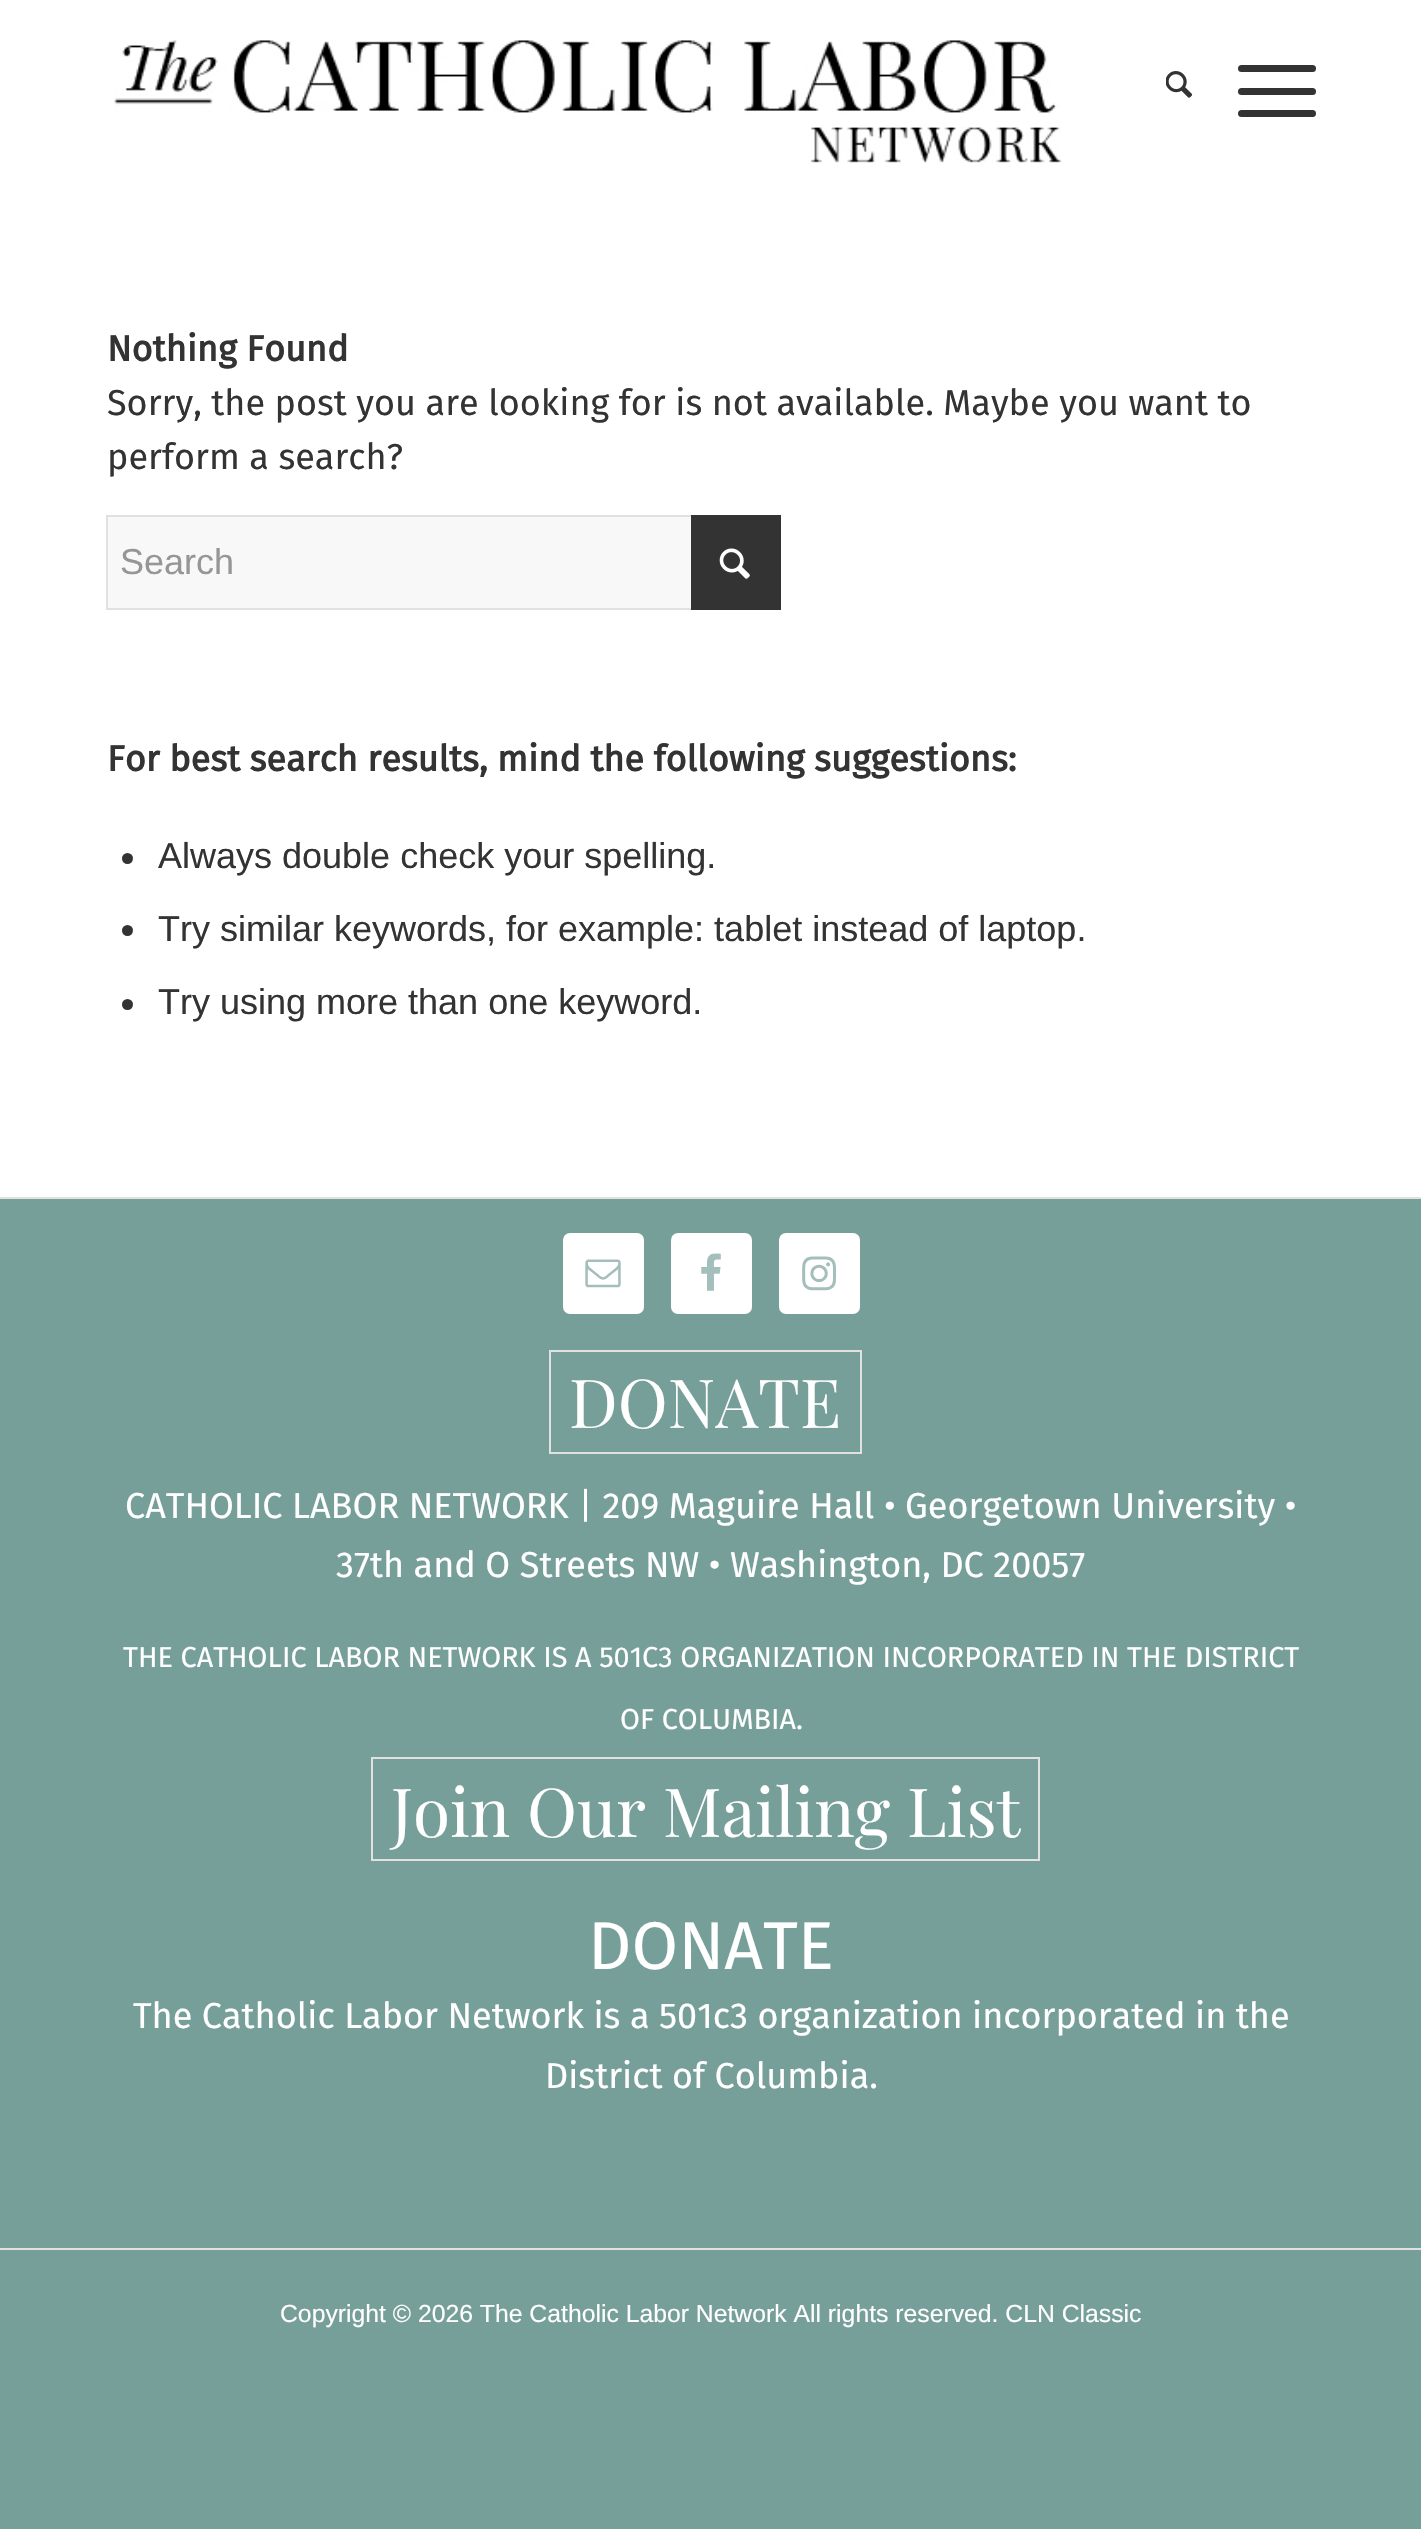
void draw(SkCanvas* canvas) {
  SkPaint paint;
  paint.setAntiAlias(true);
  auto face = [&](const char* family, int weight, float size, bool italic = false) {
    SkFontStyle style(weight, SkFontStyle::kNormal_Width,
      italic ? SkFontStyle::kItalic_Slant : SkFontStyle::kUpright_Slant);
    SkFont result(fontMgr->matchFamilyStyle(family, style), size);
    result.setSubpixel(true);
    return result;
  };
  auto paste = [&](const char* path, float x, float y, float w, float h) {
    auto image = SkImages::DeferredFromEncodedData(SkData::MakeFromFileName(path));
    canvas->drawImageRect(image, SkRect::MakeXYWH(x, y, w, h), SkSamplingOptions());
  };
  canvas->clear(0xff779f99);
  paint.setColor(0xffffffff);
  canvas->drawRect(SkRect::MakeXYWH(0, 0, 1421, 1197), paint);
  paste("img/1.png", 114, 40, 948, 123);
  paste("img/2.png", 1166, 71, 27, 27);
  paint.setColor(0xff333333);
  canvas->drawRoundRect(SkRect::MakeXYWH(1238, 88, 78, 7), 3.5f, 3.5f, paint);
  canvas->drawRoundRect(SkRect::MakeXYWH(1238, 65, 78, 7), 3.5f, 3.5f, paint);
  canvas->drawRoundRect(SkRect::MakeXYWH(1238, 110, 78, 7), 3.5f, 3.5f, paint);
  paint.setColor(0xfff8f8f8);
  canvas->drawRect(SkRect::MakeXYWH(108, 517, 583, 91), paint);
  paint.setStroke(true);
  paint.setStrokeWidth(2);
  paint.setColor(0xffe1e1e1);
  canvas->drawRect(SkRect::MakeXYWH(107, 516, 673, 93), paint);
  paint.setStroke(false);
  paint.setColor(0xff333333);
  canvas->drawRect(SkRect::MakeXYWH(691, 515, 90, 95), paint);
  paste("img/3.png", 719, 548, 31, 31);
  canvas->drawCircle(127.5f, 858.5f, 5.5f, paint);
  canvas->drawCircle(127.5f, 930.5f, 5.5f, paint);
  canvas->drawCircle(127.5f, 1004.5f, 5.5f, paint);
  paint.setColor(0xffe1e1e1);
  canvas->drawRect(SkRect::MakeXYWH(0, 1197, 1421, 2), paint);
  paint.setColor(0xffffffff);
  canvas->drawRoundRect(SkRect::MakeXYWH(563, 1233, 81, 81), 7, 7, paint);
  paste("img/4.png", 585, 1259, 36, 29);
  canvas->drawRoundRect(SkRect::MakeXYWH(671, 1233, 81, 81), 7, 7, paint);
  paste("img/5.png", 701, 1253, 20, 38);
  canvas->drawRoundRect(SkRect::MakeXYWH(779, 1233, 81, 81), 7, 7, paint);
  paste("img/6.png", 802, 1256, 34, 35);
  paint.setStroke(true);
  paint.setColor(0xffe1e1e1);
  canvas->drawRect(SkRect::MakeXYWH(550, 1351, 311, 102), paint);
  canvas->drawRect(SkRect::MakeXYWH(372, 1758, 667, 102), paint);
  paint.setStroke(false);
  canvas->drawRect(SkRect::MakeXYWH(0, 2248, 1421, 2), paint);
  auto f0 = face("Fira Sans", 700, 36);
  paint.setColor(0xff333333);
  canvas->drawString("Nothing Found", 107, 361, f0, paint);
  auto f1 = face("Fira Sans", 400, 36);
  canvas->drawString("Sorry, the post you are looking for is not available. Maybe you want to", 107, 415, f1, paint);
  canvas->drawString("perform a search?", 107, 469, f1, paint);
  auto f2 = face("Liberation Sans", 400, 36);
  paint.setColor(0xff969696);
  canvas->drawString("Search", 120, 574, f2, paint);
  paint.setColor(0xff333333);
  canvas->drawString("For best search results, mind the following suggestions:", 107, 771, f0, paint);
  {
    const struct { const char* s; float x, y; } items[] = {
      {"Always double check your spelling.", 158, 868},
      {"Try similar keywords, for example: tablet instead of laptop.", 158, 941},
      {"Try using more than one keyword.", 158, 1014},
    };
    for (auto [s, x, y] : items) {
      canvas->drawString(s, x, y, f2, paint);
    }
  }
  auto f3 = face("Playfair Display", 400, 67.5f);
  paint.setColor(0xffffffff);
  canvas->drawString("DONATE", 569, 1428, f3, paint);
  canvas->drawString("CATHOLIC LABOR NETWORK | 209 Maguire Hall • Georgetown University •", 125, 1518, f1, paint);
  canvas->drawString("37th and O Streets NW • Washington, DC 20057", 336, 1577, f1, paint);
  auto f4 = face("Fira Sans", 400, 28.8f);
  canvas->drawString("THE CATHOLIC LABOR NETWORK IS A 501C3 ORGANIZATION INCORPORATED IN THE DISTRICT", 123, 1667, f4, paint);
  canvas->drawString("OF COLUMBIA.", 620, 1729, f4, paint);
  canvas->drawString("Join Our Mailing List", 391, 1837, f3, paint);
  auto f5 = face("Fira Sans", 400, 67.5f);
  canvas->drawString("DONATE", 588, 1969, f5, paint);
  canvas->drawString("The Catholic Labor Network is a 501c3 organization incorporated in the", 133, 2028, f1, paint);
  canvas->drawString("District of Columbia.", 545, 2088, f1, paint);
  auto f6 = face("Liberation Sans", 400, 24.75f);
  canvas->drawString("Copyright © 2026 The Catholic Labor Network All rights reserved. CLN Classic", 280, 2322, f6, paint);
}
